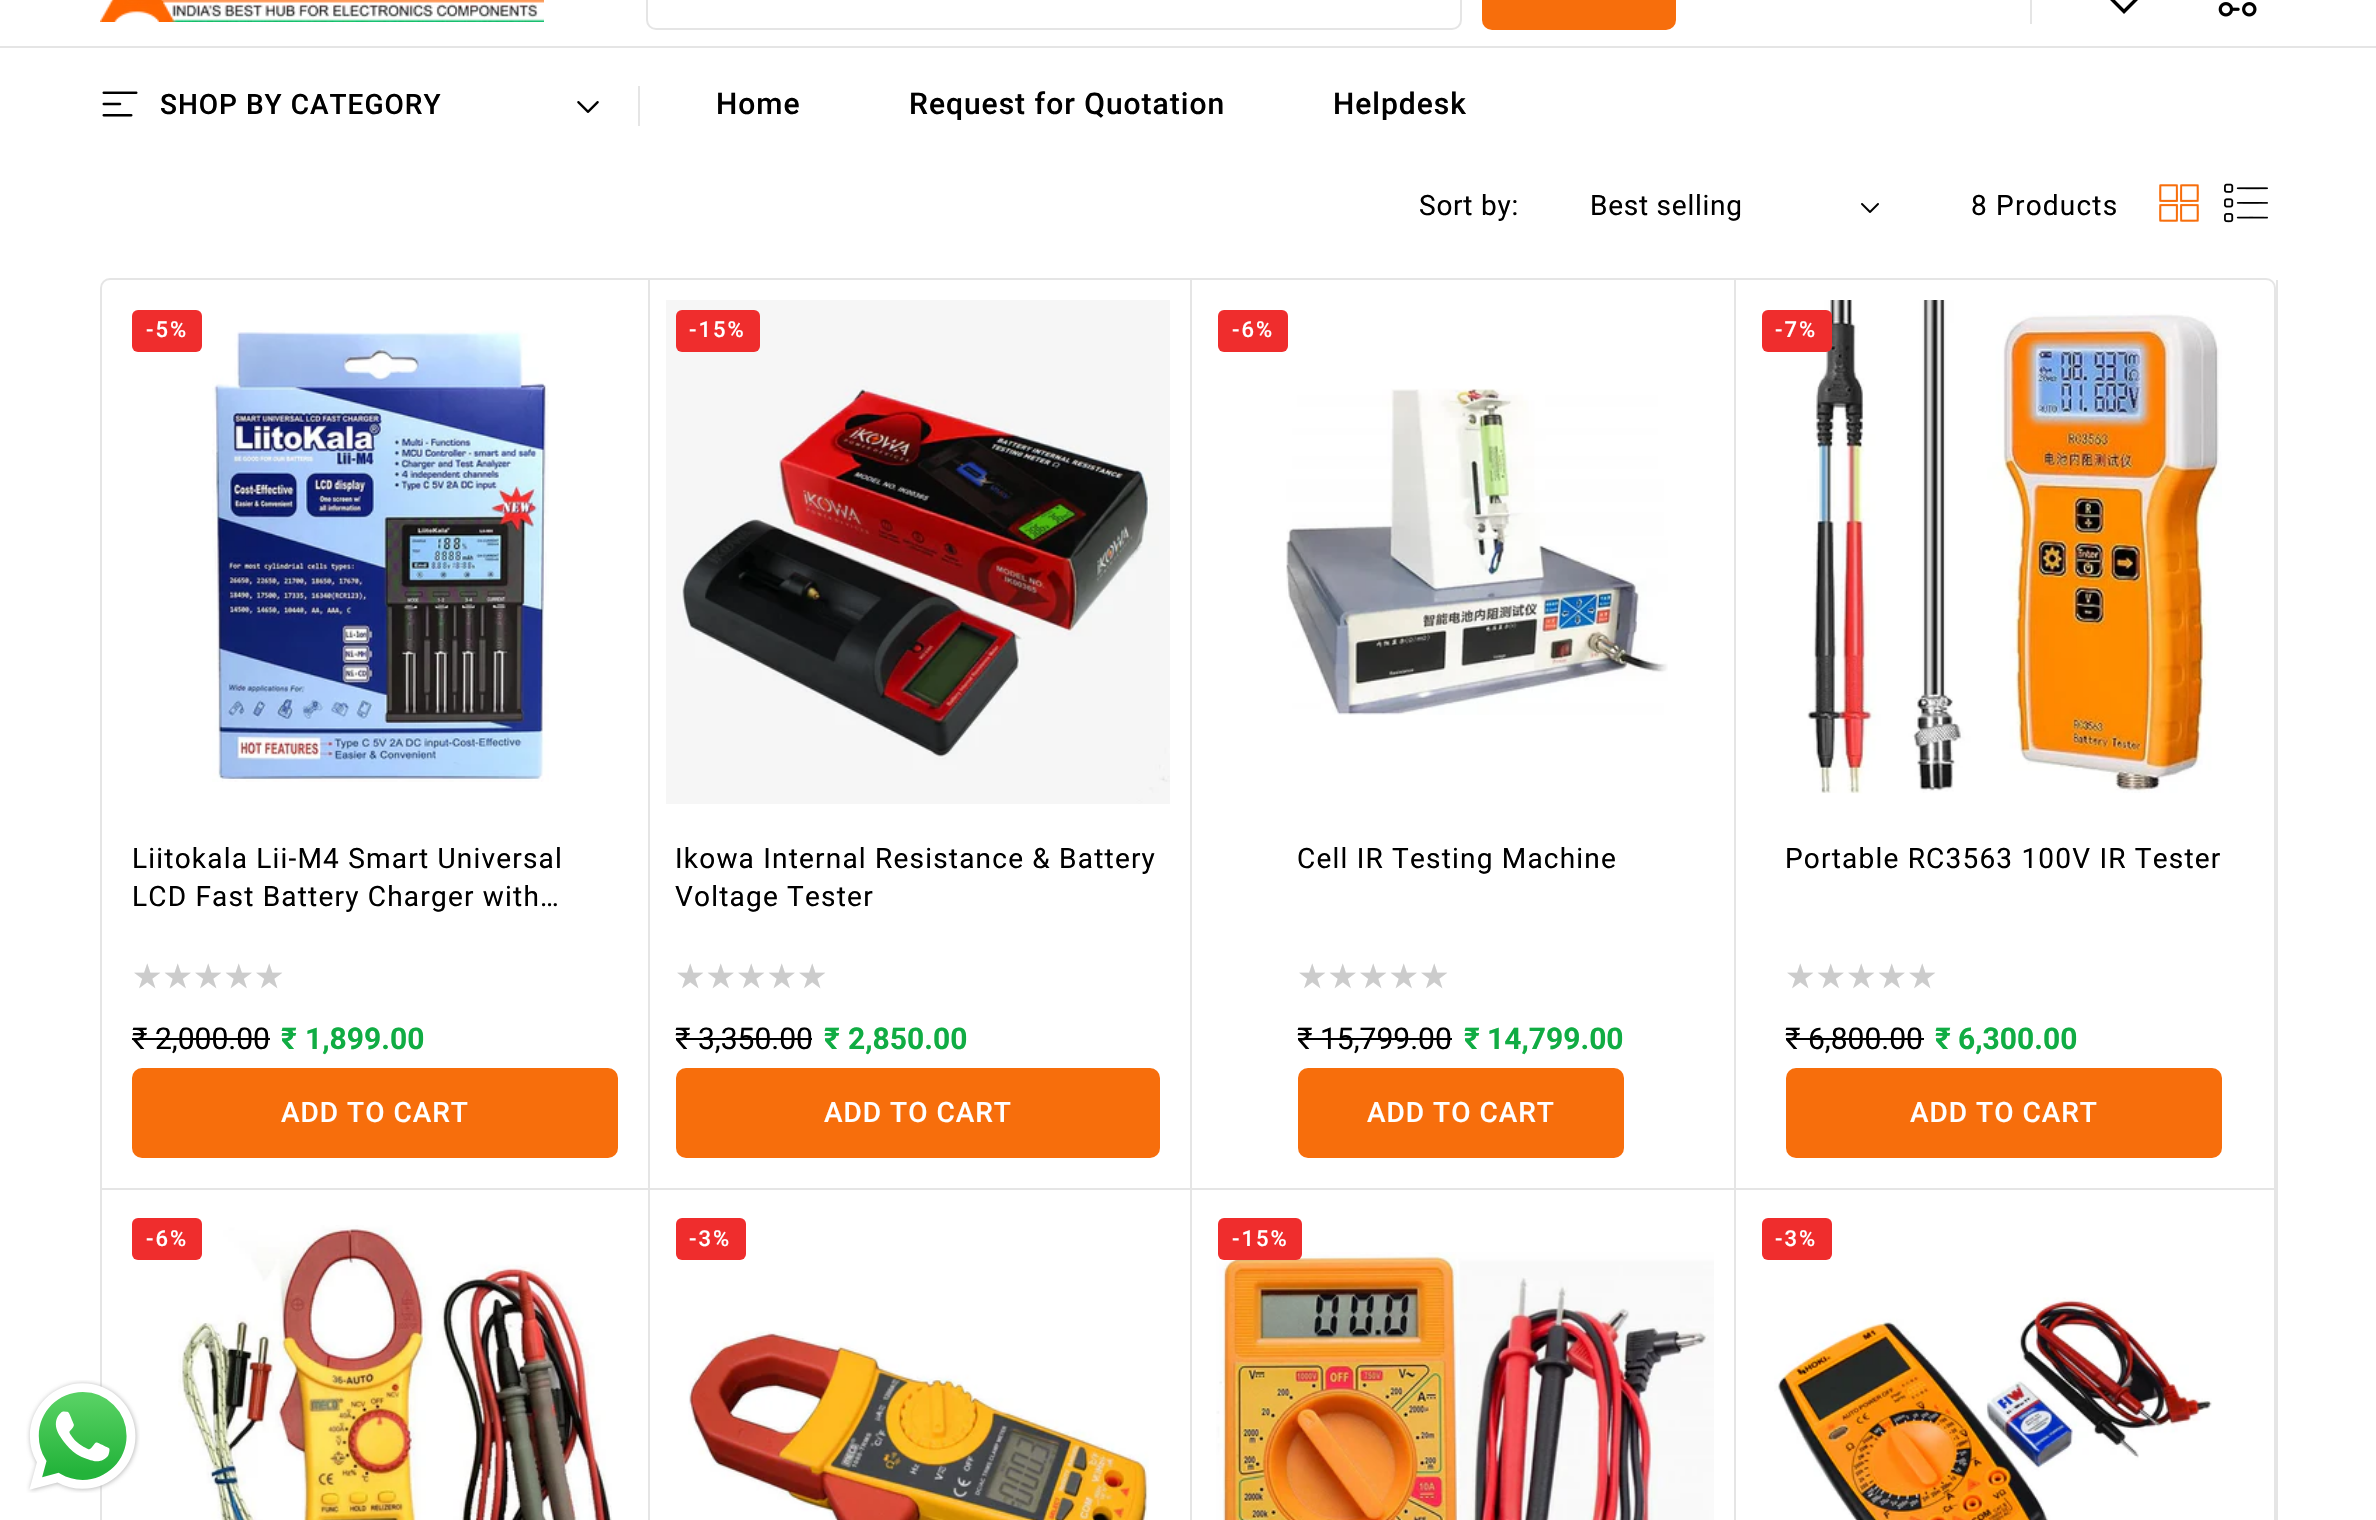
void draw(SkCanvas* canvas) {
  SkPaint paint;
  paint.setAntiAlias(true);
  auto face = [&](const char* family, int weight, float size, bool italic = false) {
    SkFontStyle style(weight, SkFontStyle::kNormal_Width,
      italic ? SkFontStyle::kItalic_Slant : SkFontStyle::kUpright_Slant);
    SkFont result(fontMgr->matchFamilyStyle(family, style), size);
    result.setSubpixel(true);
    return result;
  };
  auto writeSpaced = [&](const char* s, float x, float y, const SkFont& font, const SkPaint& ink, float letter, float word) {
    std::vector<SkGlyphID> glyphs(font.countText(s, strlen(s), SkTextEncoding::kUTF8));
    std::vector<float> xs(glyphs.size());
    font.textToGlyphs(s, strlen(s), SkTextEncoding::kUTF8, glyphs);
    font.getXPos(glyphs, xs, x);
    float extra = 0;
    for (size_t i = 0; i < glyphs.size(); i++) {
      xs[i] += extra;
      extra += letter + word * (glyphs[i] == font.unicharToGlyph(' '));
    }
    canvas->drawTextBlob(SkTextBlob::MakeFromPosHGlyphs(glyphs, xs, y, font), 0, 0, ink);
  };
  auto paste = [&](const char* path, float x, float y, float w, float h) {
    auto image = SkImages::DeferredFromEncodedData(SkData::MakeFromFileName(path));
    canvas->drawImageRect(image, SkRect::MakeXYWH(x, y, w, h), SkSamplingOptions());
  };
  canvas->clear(0xffffffff);
  paint.setColor(0xffe5e5e5);
  canvas->drawRect(SkRect::MakeXYWH(0, 46, 2376, 2), paint);
  paste("img/1.png", 100, 0, 444, 22);
  paint.setStroke(true);
  paint.setStrokeWidth(2);
  canvas->drawRoundRect(SkRect::MakeXYWH(647, -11, 814, 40), 9, 9, paint);
  paint.setStroke(false);
  paint.setColor(0xfff76e0c);
  canvas->drawRoundRect(SkRect::MakeXYWH(1482, -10, 194, 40), 10, 10, paint);
  paint.setColor(0xffe5e5e5);
  canvas->drawRect(SkRect::MakeXYWH(2030, 0, 2, 24), paint);
  paste("img/2.png", 2110, 0, 28, 14);
  paste("img/3.png", 2218, 2, 39, 15);
  paste("img/4.png", 102, 91, 36, 26);
  paste("img/5.png", 577, 101, 22, 12);
  canvas->drawRect(SkRect::MakeXYWH(638, 86, 2, 40), paint);
  paste("img/6.png", 1861, 203, 18, 10);
  paste("img/7.png", 2159, 184, 40, 38);
  paste("img/8.png", 2224, 183, 44, 40);
  paint.setStroke(true);
  canvas->drawRoundRect(SkRect::MakeXYWH(101, 279, 2174, 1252), 9, 9, paint);
  paint.setStroke(false);
  canvas->drawRect(SkRect::MakeXYWH(102, 1188, 2172, 2), paint);
  canvas->drawRect(SkRect::MakeXYWH(648, 280, 2, 1240), paint);
  paint.setColor(0xffef2d2d);
  canvas->drawRoundRect(SkRect::MakeXYWH(132, 310, 70, 42), 6, 6, paint);
  paste("img/9.png", 212, 330, 337, 452);
  paint.setColor(0xff000000);
  canvas->drawRect(SkRect::MakeXYWH(132, 1038, 138, 2), paint);
  paint.setColor(0xfff76e0c);
  canvas->drawRoundRect(SkRect::MakeXYWH(132, 1068, 486, 90), 10, 10, paint);
  paint.setColor(0xffe5e5e5);
  canvas->drawRect(SkRect::MakeXYWH(1190, 280, 2, 1240), paint);
  paste("img/10.png", 666, 300, 504, 504);
  paint.setColor(0xffef2d2d);
  canvas->drawRoundRect(SkRect::MakeXYWH(676, 310, 84, 42), 6, 6, paint);
  paint.setColor(0xff000000);
  canvas->drawRect(SkRect::MakeXYWH(676, 1038, 136, 2), paint);
  paint.setColor(0xfff76e0c);
  canvas->drawRoundRect(SkRect::MakeXYWH(676, 1068, 484, 90), 10, 10, paint);
  paint.setColor(0xffe5e5e5);
  canvas->drawRect(SkRect::MakeXYWH(1734, 280, 2, 1240), paint);
  paint.setColor(0xffef2d2d);
  canvas->drawRoundRect(SkRect::MakeXYWH(1218, 310, 70, 42), 6, 6, paint);
  paste("img/11.png", 1286, 388, 382, 327);
  paint.setColor(0xff000000);
  canvas->drawRect(SkRect::MakeXYWH(1298, 1038, 154, 2), paint);
  paint.setColor(0xfff76e0c);
  canvas->drawRoundRect(SkRect::MakeXYWH(1298, 1068, 326, 90), 10, 10, paint);
  paint.setColor(0xffe5e5e5);
  canvas->drawRect(SkRect::MakeXYWH(2276, 280, 2, 1240), paint);
  paste("img/12.png", 1807, 300, 415, 494);
  paint.setColor(0xffef2d2d);
  canvas->drawRoundRect(SkRect::MakeXYWH(1762, 310, 70, 42), 6, 6, paint);
  paint.setColor(0xff000000);
  canvas->drawRect(SkRect::MakeXYWH(1786, 1038, 138, 2), paint);
  paint.setColor(0xfff76e0c);
  canvas->drawRoundRect(SkRect::MakeXYWH(1786, 1068, 436, 90), 10, 10, paint);
  paste("img/13.png", 178, 1225, 434, 295);
  paint.setColor(0xffef2d2d);
  canvas->drawRoundRect(SkRect::MakeXYWH(132, 1218, 70, 42), 6, 6, paint);
  canvas->drawRoundRect(SkRect::MakeXYWH(676, 1218, 70, 42), 6, 6, paint);
  paste("img/14.png", 688, 1331, 461, 189);
  paste("img/15.png", 1216, 1252, 498, 268);
  canvas->drawRoundRect(SkRect::MakeXYWH(1218, 1218, 84, 42), 6, 6, paint);
  canvas->drawRoundRect(SkRect::MakeXYWH(1762, 1218, 70, 42), 6, 6, paint);
  paste("img/16.png", 1774, 1297, 438, 223);
  paste("img/17.png", 26, 1380, 114, 113);
  auto f0 = face("Roboto", 500, 28);
  paint.setColor(0xff000000);
  writeSpaced("SHOP BY CATEGORY", 160, 114, f0, paint, 1, 0);
  auto f1 = face("Roboto", 500, 30);
  {
    const struct { const char* s; float x, y; } items[] = {
      {"Home", 716, 114},
      {"Request for Quotation", 909, 114},
      {"Helpdesk", 1333, 114},
    };
    for (auto [s, x, y] : items) {
      writeSpaced(s, x, y, f1, paint, 1, 0);
    }
  }
  auto f2 = face("Roboto", 400, 28);
  writeSpaced("Sort by:", 1419, 215, f2, paint, 0.75f, 0);
  writeSpaced("Best selling", 1590, 215, f2, paint, 0.75f, 0);
  writeSpaced("8 Products", 1971, 215, f2, paint, 1.2f, 0);
  auto f3 = face("Roboto", 500, 22);
  paint.setColor(0xffffffff);
  writeSpaced("-5%", 146, 337, f3, paint, 2, 0);
  paint.setColor(0xff000000);
  writeSpaced("Liitokala Lii-M4 Smart Universal", 132, 868, f2, paint, 1.2f, 0);
  writeSpaced("LCD Fast Battery Charger with…", 132, 906, f2, paint, 1.2f, 0);
  auto f4 = face("DejaVu Sans", 400, 34);
  paint.setColor(0xffcccccc);
  canvas->drawString("★★★★★", 132, 988, f4, paint);
  auto f5 = face("Roboto", 400, 30);
  paint.setColor(0xff000000);
  canvas->drawString("₹ 2,000.00", 132, 1049, f5, paint);
  auto f6 = face("Roboto", 700, 30);
  paint.setColor(0xff10ac43);
  canvas->drawString("₹", 281, 1049, f6, paint);
  auto f7 = face("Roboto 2", 700, 30);
  canvas->drawString("1,899.00", 305, 1049, f7, paint);
  paint.setColor(0xffffffff);
  writeSpaced("ADD TO CART", 281, 1122, f0, paint, 1, 0);
  writeSpaced("-15%", 689, 337, f3, paint, 2, 0);
  paint.setColor(0xff000000);
  writeSpaced("Ikowa Internal Resistance & Battery", 675, 868, f2, paint, 1.2f, 0);
  writeSpaced("Voltage Tester", 675, 906, f2, paint, 1.2f, 0);
  paint.setColor(0xffcccccc);
  canvas->drawString("★★★★★", 675, 988, f4, paint);
  paint.setColor(0xff000000);
  canvas->drawString("₹ 3,350.00", 675, 1049, f5, paint);
  paint.setColor(0xff10ac43);
  canvas->drawString("₹", 824, 1049, f6, paint);
  canvas->drawString("2,850.00", 848, 1049, f7, paint);
  paint.setColor(0xffffffff);
  writeSpaced("ADD TO CART", 824, 1122, f0, paint, 1, 0);
  writeSpaced("-6%", 1232, 337, f3, paint, 2, 0);
  paint.setColor(0xff000000);
  writeSpaced("Cell IR Testing Machine", 1297, 868, f2, paint, 1.2f, 0);
  paint.setColor(0xffcccccc);
  canvas->drawString("★★★★★", 1297, 988, f4, paint);
  paint.setColor(0xff000000);
  canvas->drawString("₹ 15,799.00", 1297, 1049, f5, paint);
  paint.setColor(0xff10ac43);
  canvas->drawString("₹", 1464, 1049, f6, paint);
  canvas->drawString("14,799.00", 1487, 1049, f7, paint);
  paint.setColor(0xffffffff);
  writeSpaced("ADD TO CART", 1367, 1122, f0, paint, 1, 0);
  writeSpaced("-7%", 1775, 337, f3, paint, 2, 0);
  paint.setColor(0xff000000);
  writeSpaced("Portable RC3563 100V IR Tester", 1785, 868, f2, paint, 1.2f, 0);
  paint.setColor(0xffcccccc);
  canvas->drawString("★★★★★", 1785, 988, f4, paint);
  paint.setColor(0xff000000);
  canvas->drawString("₹ 6,800.00", 1785, 1049, f5, paint);
  paint.setColor(0xff10ac43);
  canvas->drawString("₹", 1935, 1049, f6, paint);
  canvas->drawString("6,300.00", 1958, 1049, f7, paint);
  paint.setColor(0xffffffff);
  writeSpaced("ADD TO CART", 1910, 1122, f0, paint, 1, 0);
  {
    const struct { const char* s; float x, y; } items[] = {
      {"-6%", 146, 1246},
      {"-3%", 689, 1246},
      {"-15%", 1232, 1246},
      {"-3%", 1775, 1246},
    };
    for (auto [s, x, y] : items) {
      writeSpaced(s, x, y, f3, paint, 2, 0);
    }
  }
}
